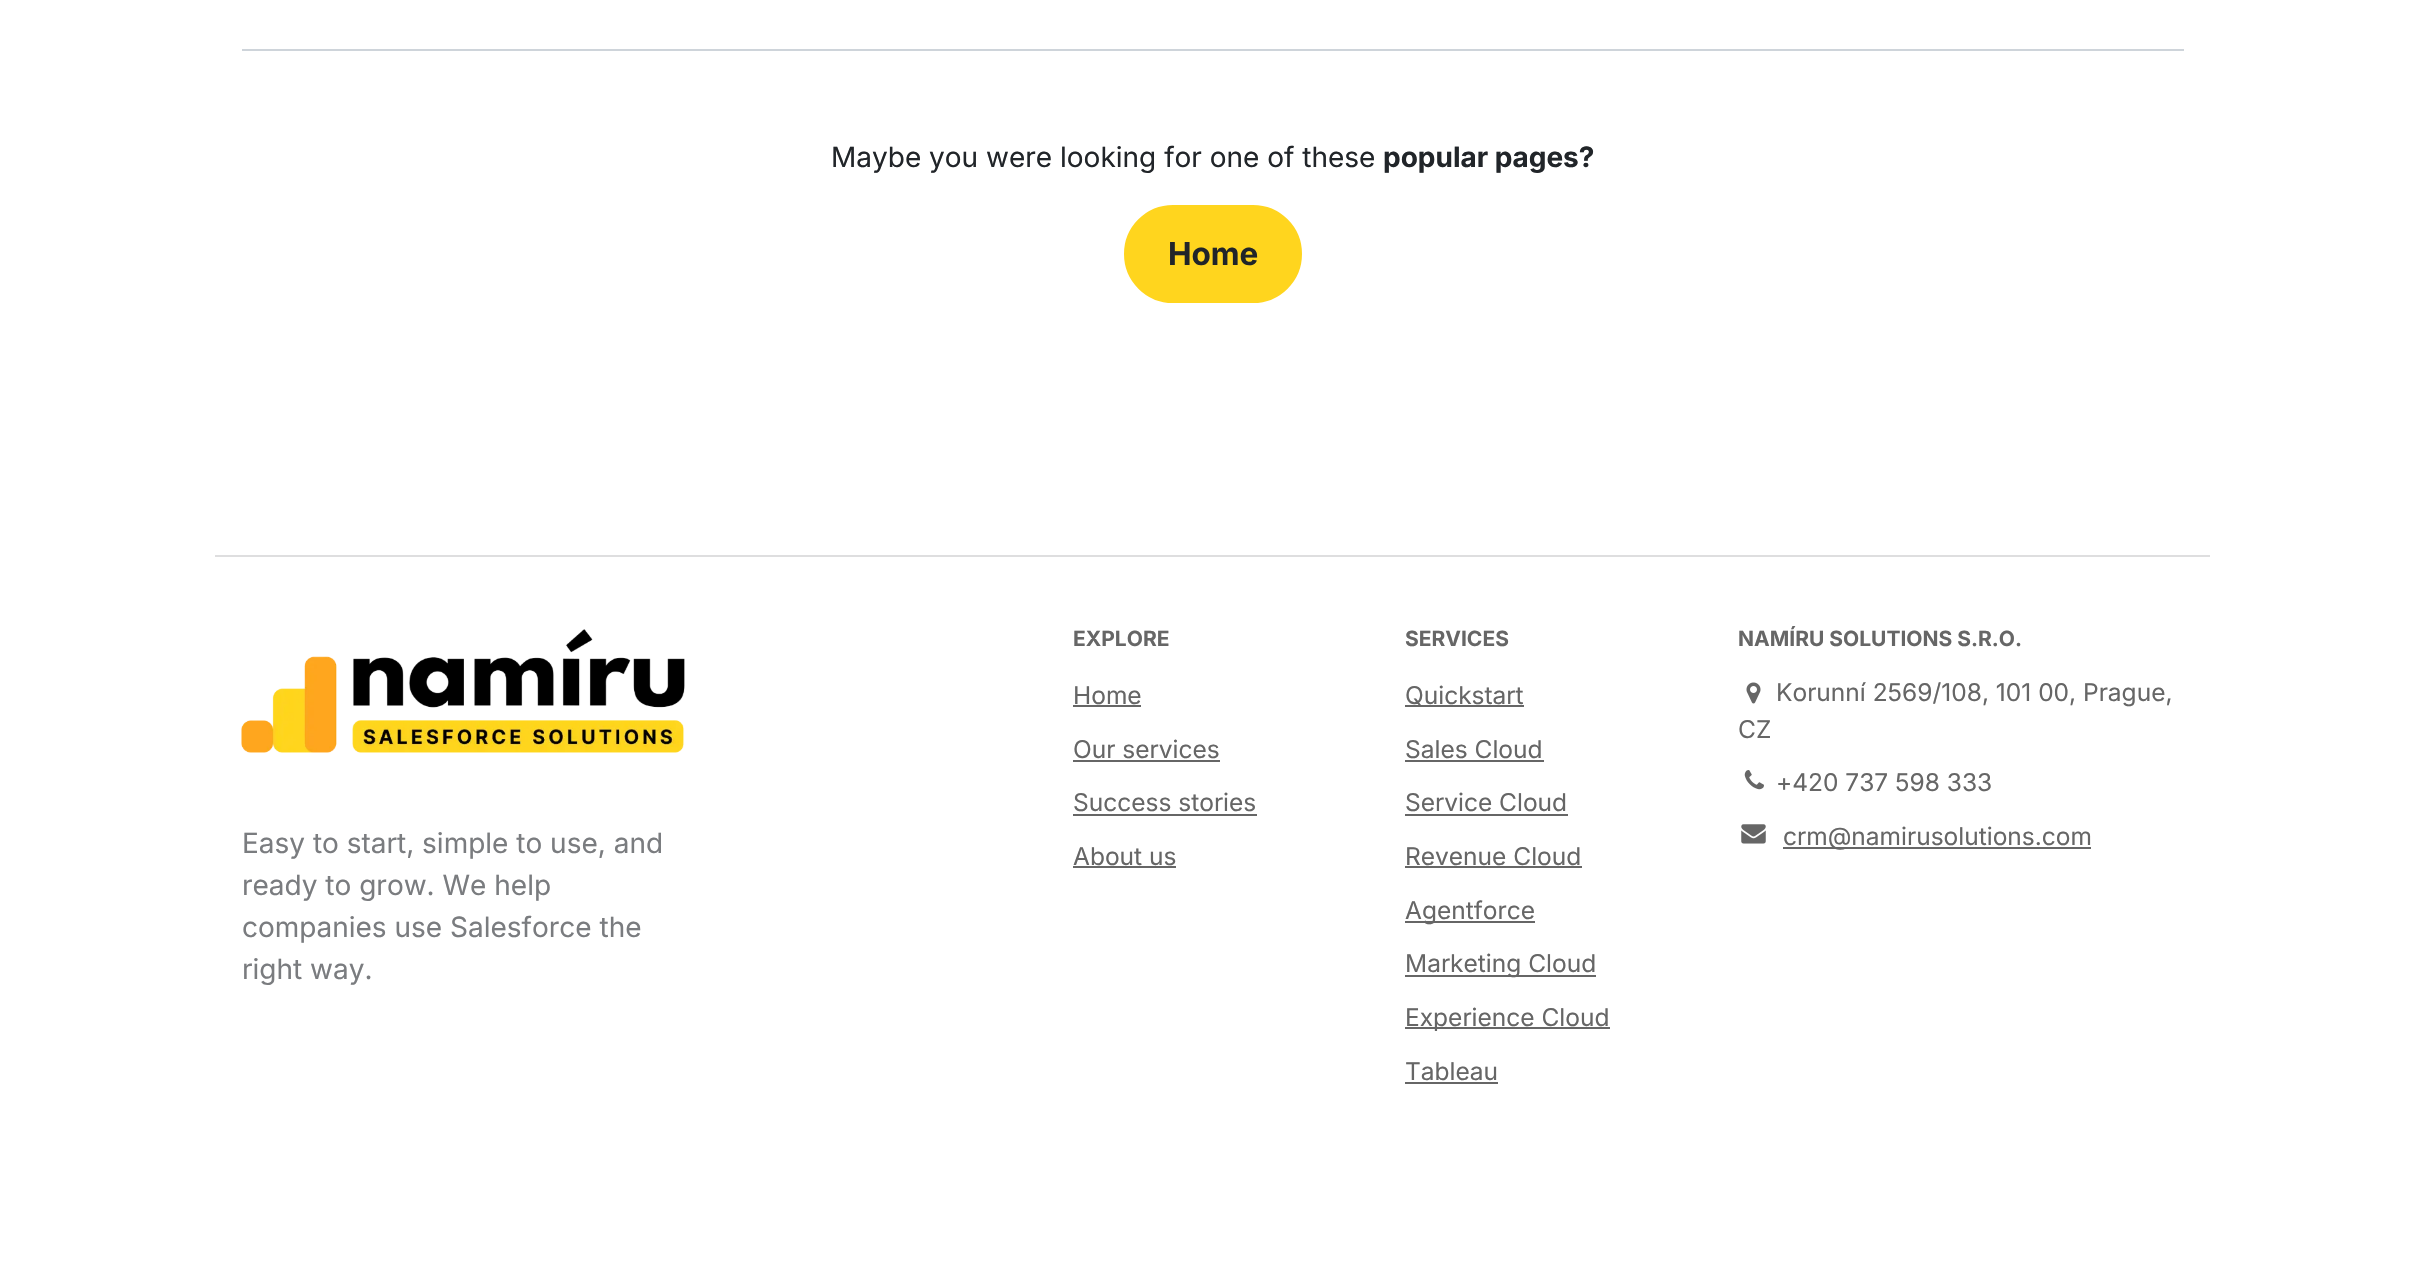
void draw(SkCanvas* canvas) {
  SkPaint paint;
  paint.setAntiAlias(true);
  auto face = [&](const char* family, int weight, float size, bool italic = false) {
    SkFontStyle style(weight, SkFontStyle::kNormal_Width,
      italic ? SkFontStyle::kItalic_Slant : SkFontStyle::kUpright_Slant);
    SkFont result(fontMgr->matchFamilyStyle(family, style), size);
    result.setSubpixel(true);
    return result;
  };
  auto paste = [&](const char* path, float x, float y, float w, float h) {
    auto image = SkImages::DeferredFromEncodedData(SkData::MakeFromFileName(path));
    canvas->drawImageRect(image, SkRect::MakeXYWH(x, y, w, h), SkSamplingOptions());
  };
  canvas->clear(0xffffffff);
  paint.setColor(0xffced4da);
  canvas->drawRect(SkRect::MakeXYWH(242, 49, 1942, 2), paint);
  paint.setColor(0xffffd51e);
  canvas->drawRoundRect(SkRect::MakeXYWH(1125, 206, 176, 96), 48, 48, paint);
  paint.setStroke(true);
  paint.setStrokeWidth(2);
  canvas->drawRoundRect(SkRect::MakeXYWH(1125, 206, 176, 96), 48, 48, paint);
  paint.setStroke(false);
  paint.setColor(0xffdededf);
  canvas->drawRect(SkRect::MakeXYWH(215, 555, 1995, 2), paint);
  paste("img/1.png", 241, 629, 444, 124);
  {
    const struct { float x, y, w, h; SkColor color; } items[] = {
      {1073, 705, 68, 2, 0xff666666},
      {1073, 760, 147, 2, 0xff666666},
      {1073, 814, 184, 2, 0xff666666},
      {1073, 866, 103, 2, 0xff666666},
      {1405, 705, 119, 2, 0xff666666},
      {1405, 760, 139, 2, 0xff666666},
      {1405, 814, 163, 2, 0xff666666},
      {1405, 866, 177, 2, 0xff666666},
      {1405, 921, 130, 2, 0xff666666},
      {1405, 975, 191, 2, 0xff666666},
      {1405, 1027, 205, 2, 0xff666666},
      {1405, 1082, 93, 2, 0xff666666},
    };
    for (auto [x, y, w, h, color] : items) {
      paint.setColor(color);
      canvas->drawRect(SkRect::MakeXYWH(x, y, w, h), paint);
    }
  }
  paste("img/2.png", 1746, 682, 15, 22);
  paste("img/3.png", 1744, 770, 20, 20);
  paste("img/4.png", 1741, 824, 25, 20);
  canvas->drawRect(SkRect::MakeXYWH(1783, 847, 308, 2), paint);
  auto f0 = face("Inter", 400, 28);
  paint.setColor(0xff212529);
  canvas->drawString("Maybe you were looking for one of these", 831, 167, f0, paint);
  auto f1 = face("Inter", 700, 28);
  canvas->drawString("popular pages?", 1383, 167, f1, paint);
  auto f2 = face("Inter", 700, 31.5f);
  canvas->drawString("Home", 1168, 265, f2, paint);
  paint.setColor(0xff7a7c7f);
  {
    const struct { const char* s; float x, y; } items[] = {
      {"Easy to start, simple to use, and", 242, 853},
      {"ready to grow. We help", 242, 895},
      {"companies use Salesforce the", 242, 937},
      {"right way.", 242, 979},
    };
    for (auto [s, x, y] : items) {
      canvas->drawString(s, x, y, f0, paint);
    }
  }
  auto f3 = face("Inter", 700, 21);
  paint.setColor(0xff666666);
  canvas->drawString("EXPLORE", 1073, 646, f3, paint);
  auto f4 = face("Inter", 400, 24.5f);
  {
    const struct { const char* s; float x, y; } items[] = {
      {"Home", 1073, 704},
      {"Our services", 1073, 758},
      {"Success stories", 1073, 811},
      {"About us", 1073, 865},
    };
    for (auto [s, x, y] : items) {
      canvas->drawString(s, x, y, f4, paint);
    }
  }
  canvas->drawString("SERVICES", 1405, 646, f3, paint);
  {
    const struct { const char* s; float x, y; } items[] = {
      {"Quickstart", 1405, 704},
      {"Sales Cloud", 1405, 758},
      {"Service Cloud", 1405, 811},
      {"Revenue Cloud", 1405, 865},
      {"Agentforce", 1405, 919},
      {"Marketing Cloud", 1405, 972},
      {"Experience Cloud", 1405, 1026},
      {"Tableau", 1405, 1080},
    };
    for (auto [s, x, y] : items) {
      canvas->drawString(s, x, y, f4, paint);
    }
  }
  canvas->drawString("NAMÍRU SOLUTIONS S.R.O.", 1738, 646, f3, paint);
  {
    const struct { const char* s; float x, y; } items[] = {
      {"Korunní 2569/108, 101 00, Prague,", 1776, 701},
      {"CZ", 1738, 738},
      {"+420 737 598 333", 1776, 791},
      {"crm@namirusolutions.com", 1783, 845},
    };
    for (auto [s, x, y] : items) {
      canvas->drawString(s, x, y, f4, paint);
    }
  }
}
